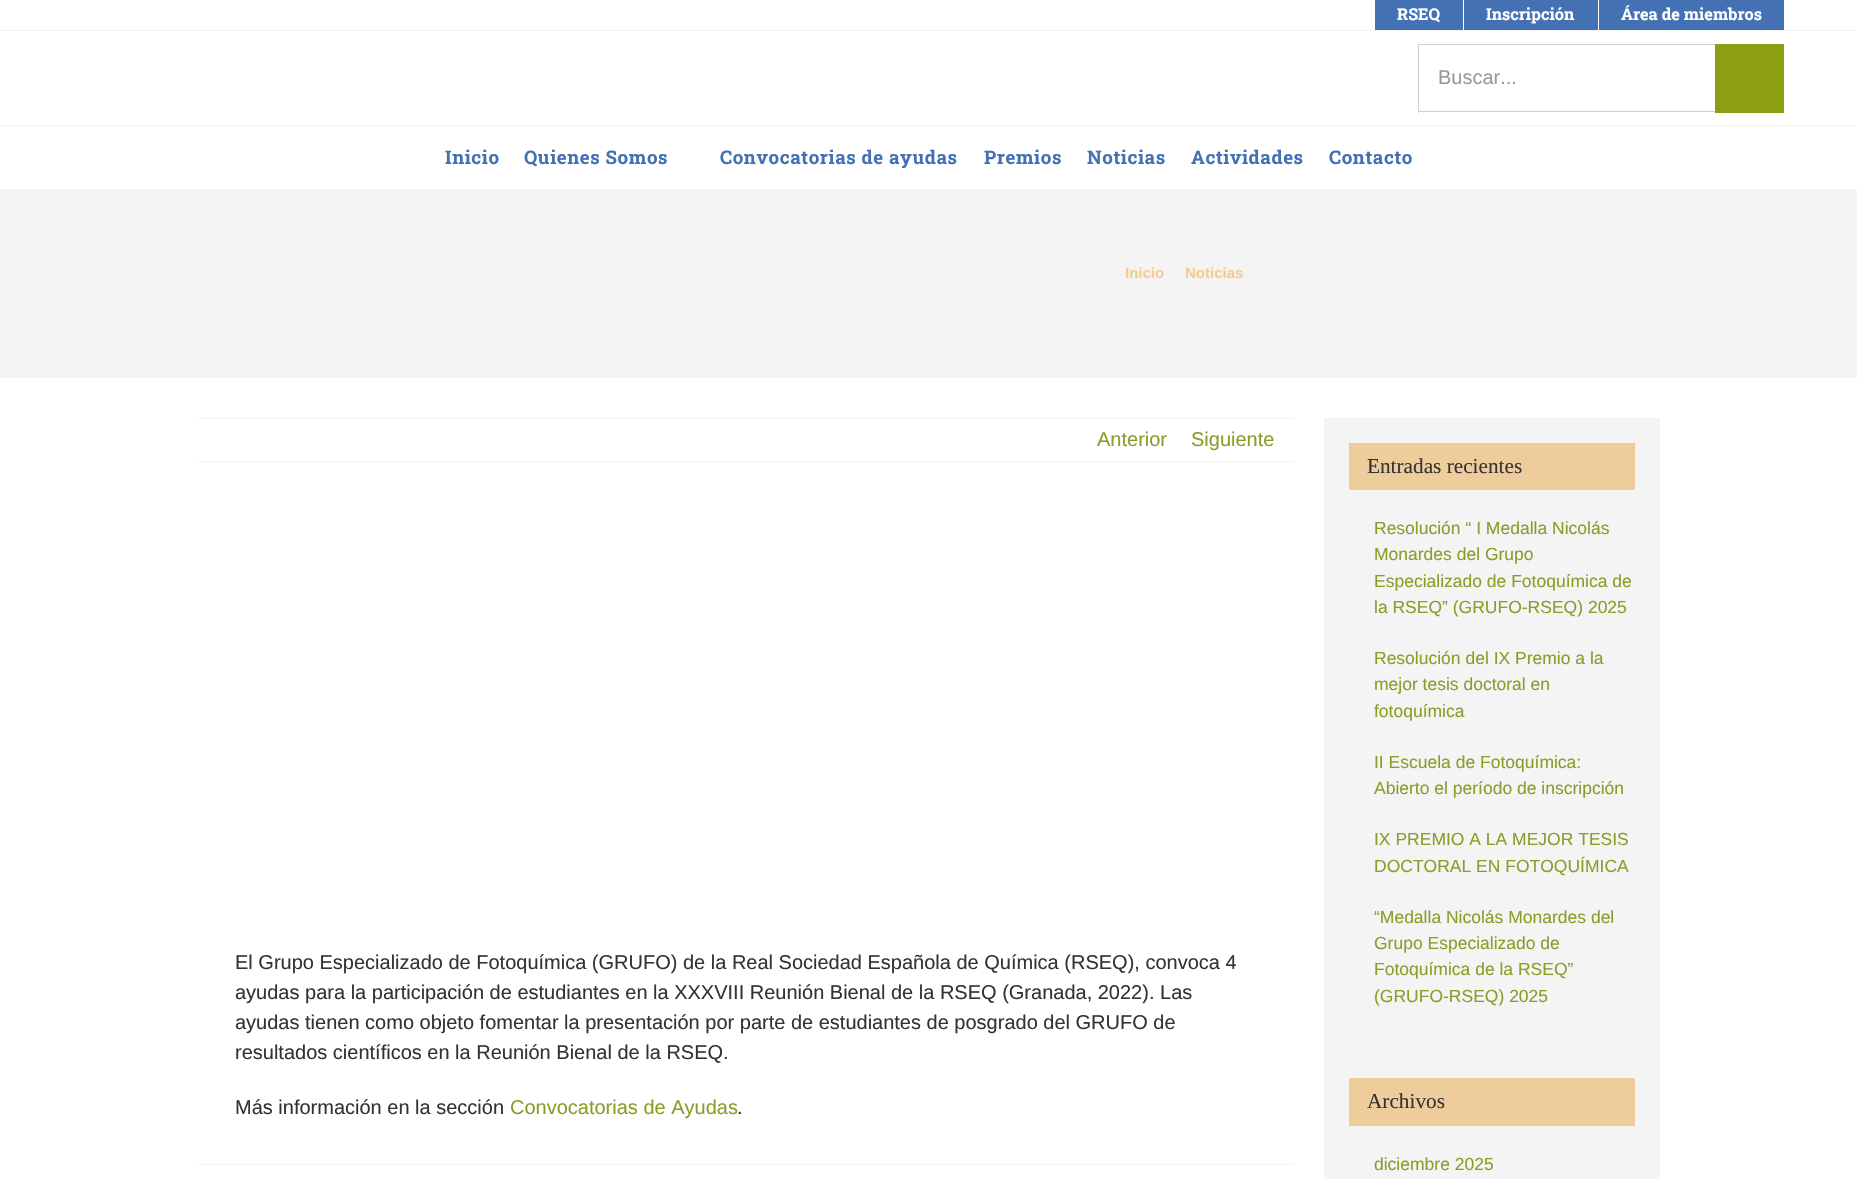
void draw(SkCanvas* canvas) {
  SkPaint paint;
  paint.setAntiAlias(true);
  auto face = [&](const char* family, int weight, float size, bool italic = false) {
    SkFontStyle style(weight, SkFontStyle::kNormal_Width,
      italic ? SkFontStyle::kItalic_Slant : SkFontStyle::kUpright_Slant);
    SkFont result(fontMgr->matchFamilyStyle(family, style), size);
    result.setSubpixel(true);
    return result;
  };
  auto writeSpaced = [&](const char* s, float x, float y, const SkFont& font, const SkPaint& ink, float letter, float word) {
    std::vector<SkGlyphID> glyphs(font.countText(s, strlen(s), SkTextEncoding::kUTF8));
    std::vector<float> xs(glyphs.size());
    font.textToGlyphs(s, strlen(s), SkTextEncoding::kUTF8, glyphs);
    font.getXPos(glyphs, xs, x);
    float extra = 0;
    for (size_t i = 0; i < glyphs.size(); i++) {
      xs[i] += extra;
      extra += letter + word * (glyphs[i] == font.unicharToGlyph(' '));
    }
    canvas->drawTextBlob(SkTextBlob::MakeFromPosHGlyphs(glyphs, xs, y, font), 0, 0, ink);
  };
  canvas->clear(0xffffffff);
  {
    const struct { float x, y, w, h; SkColor color; } items[] = {
      {0, 30, 1857, 1, 0xfff4f4f4},
      {1375, 0, 409, 30, 0xff4470b4},
      {1463, 0, 1, 30, 0xffffffff},
      {1598, 0, 1, 30, 0xffffffff},
      {0, 125, 1857, 1, 0xfff4f4f4},
      {1418, 44, 297, 1, 0xffcecece},
      {1418, 111, 297, 1, 0xffcecece},
      {1418, 44, 1, 69, 0xffcecece},
      {1715, 44, 69, 69, 0xff8c9f11},
      {0, 189, 1857, 189, 0xfff4f4f4},
      {198, 418, 1097, 1, 0xfff4f4f4},
      {198, 461, 1097, 1, 0xfff4f4f4},
      {198, 1164, 1097, 1, 0xfff4f4f4},
      {1324, 418, 336, 761, 0xfff4f4f4},
      {1349, 443, 286, 47, 0xffefcc9b},
      {1349, 1078, 286, 48, 0xffefcc9b},
    };
    for (auto [x, y, w, h, color] : items) {
      paint.setColor(color);
      canvas->drawRect(SkRect::MakeXYWH(x, y, w, h), paint);
    }
  }
  auto f0 = face("Roboto Slab", 700, 16.25f);
  paint.setColor(0xffffffff);
  {
    const struct { const char* s; float x, y; } items[] = {
      {"RSEQ", 1397, 20},
      {"Inscripción", 1486, 20},
      {"Área de miembros", 1621, 20},
    };
    for (auto [s, x, y] : items) {
      canvas->drawString(s, x, y, f0, paint);
    }
  }
  auto f1 = face("Liberation Sans", 400, 20);
  paint.setColor(0xff999999);
  canvas->drawString("Buscar...", 1438, 84, f1, paint);
  auto f2 = face("Roboto Slab", 700, 18.75f);
  paint.setColor(0xff4470b4);
  {
    const struct { const char* s; float x, y; } items[] = {
      {"Inicio", 445, 164},
      {"Quienes Somos", 524, 164},
      {"Convocatorias de ayudas", 720, 164},
      {"Premios", 984, 164},
      {"Noticias", 1087, 164},
      {"Actividades", 1191, 164},
      {"Contacto", 1329, 164},
    };
    for (auto [s, x, y] : items) {
      writeSpaced(s, x, y, f2, paint, 0.6f, 0);
    }
  }
  auto f3 = face("Liberation Sans", 700, 15);
  paint.setColor(0xfff2cd92);
  canvas->drawString("Inicio", 1125, 278, f3, paint);
  canvas->drawString("Noticias", 1185, 278, f3, paint);
  paint.setColor(0xff8d9b27);
  canvas->drawString("Anterior", 1097, 446, f1, paint);
  canvas->drawString("Siguiente", 1191, 446, f1, paint);
  paint.setColor(0xff333333);
  {
    const struct { const char* s; float x, y; } items[] = {
      {"El Grupo Especializado de Fotoquímica (GRUFO) de la Real Sociedad Española de Química (RSEQ), convoca 4", 235, 969},
      {"ayudas para la participación de estudiantes en la XXXVIII Reunión Bienal de la RSEQ (Granada, 2022). Las", 235, 999},
      {"ayudas tienen como objeto fomentar la presentación por parte de estudiantes de posgrado del GRUFO de", 235, 1029},
      {"resultados científicos en la Reunión Bienal de la RSEQ.", 235, 1059},
      {"Más información en la sección", 235, 1114},
    };
    for (auto [s, x, y] : items) {
      canvas->drawString(s, x, y, f1, paint);
    }
  }
  paint.setColor(0xff8d9b27);
  canvas->drawString("Convocatorias de Ayudas", 510, 1114, f1, paint);
  paint.setColor(0xff333333);
  canvas->drawString(".", 737, 1114, f1, paint);
  auto f4 = face("Liberation Serif", 400, 21.25f);
  canvas->drawString("Entradas recientes", 1367, 473, f4, paint);
  auto f5 = face("Liberation Sans", 400, 17.5f);
  paint.setColor(0xff8d9b27);
  {
    const struct { const char* s; float x, y; } items[] = {
      {"Resolución “ I Medalla Nicolás", 1374, 534},
      {"Monardes del Grupo", 1374, 560},
      {"Especializado de Fotoquímica de", 1374, 587},
      {"la RSEQ” (GRUFO-RSEQ) 2025", 1374, 613},
      {"Resolución del IX Premio a la", 1374, 664},
      {"mejor tesis doctoral en", 1374, 690},
      {"fotoquímica", 1374, 717},
      {"II Escuela de Fotoquímica:", 1374, 768},
      {"Abierto el período de inscripción", 1374, 794},
      {"IX PREMIO A LA MEJOR TESIS", 1374, 845},
      {"DOCTORAL EN FOTOQUÍMICA", 1374, 872},
      {"“Medalla Nicolás Monardes del", 1374, 923},
      {"Grupo Especializado de", 1374, 949},
      {"Fotoquímica de la RSEQ”", 1374, 975},
      {"(GRUFO-RSEQ) 2025", 1374, 1002},
    };
    for (auto [s, x, y] : items) {
      canvas->drawString(s, x, y, f5, paint);
    }
  }
  paint.setColor(0xff333333);
  canvas->drawString("Archivos", 1367, 1108, f4, paint);
  paint.setColor(0xff8d9b27);
  canvas->drawString("diciembre 2025", 1374, 1170, f5, paint);
}
